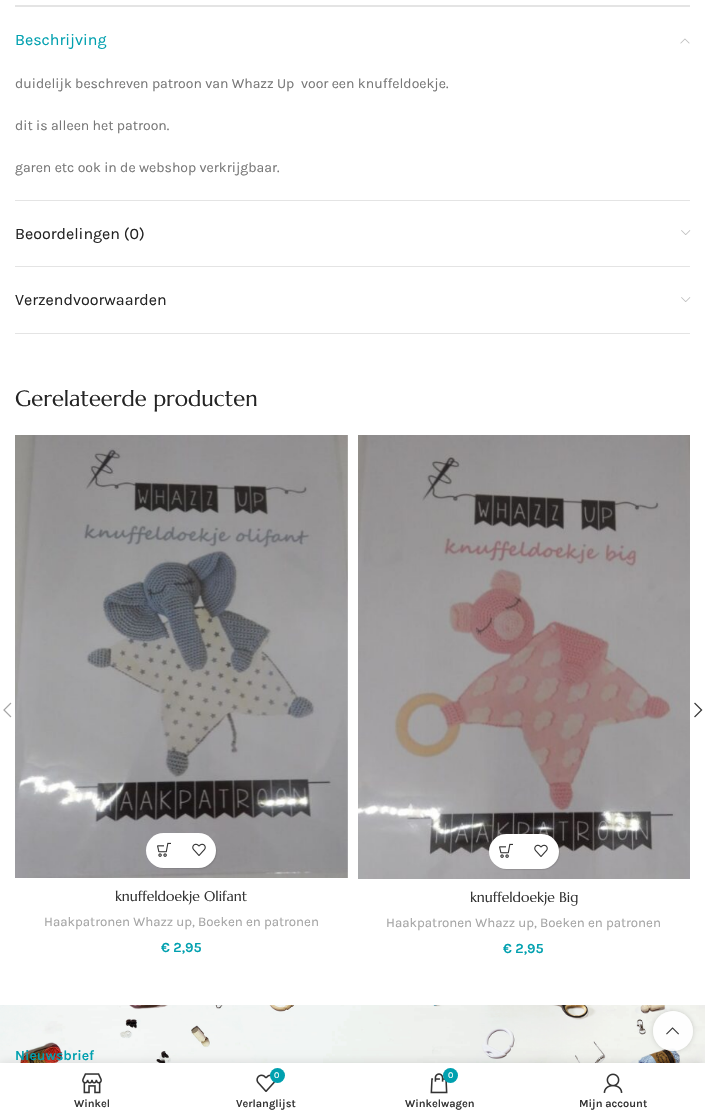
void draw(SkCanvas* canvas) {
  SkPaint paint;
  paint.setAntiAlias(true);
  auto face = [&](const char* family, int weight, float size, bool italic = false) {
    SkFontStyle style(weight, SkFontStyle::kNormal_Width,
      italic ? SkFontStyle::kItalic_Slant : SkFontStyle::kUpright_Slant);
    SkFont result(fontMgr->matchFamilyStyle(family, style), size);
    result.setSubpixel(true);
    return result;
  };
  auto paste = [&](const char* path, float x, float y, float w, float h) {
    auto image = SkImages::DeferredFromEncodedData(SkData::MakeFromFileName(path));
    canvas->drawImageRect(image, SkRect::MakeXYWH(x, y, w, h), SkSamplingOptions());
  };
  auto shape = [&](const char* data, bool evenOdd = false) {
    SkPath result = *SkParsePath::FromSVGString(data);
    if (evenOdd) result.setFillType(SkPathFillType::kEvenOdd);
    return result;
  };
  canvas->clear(0xffffffff);
  paint.setColor(0xffe4e4e4);
  canvas->drawRect(SkRect::MakeXYWH(15, 5, 675, 2), paint);
  canvas->drawRect(SkRect::MakeXYWH(15, 200, 675, 1), paint);
  paste("img/1.png", 680, 38, 10, 6);
  canvas->drawRect(SkRect::MakeXYWH(15, 266, 675, 1), paint);
  paste("img/2.png", 681, 230, 10, 5);
  canvas->drawRect(SkRect::MakeXYWH(15, 333, 675, 1), paint);
  paste("img/2.png", 681, 297, 10, 5);
  paste("img/3.png", 3, 702, 9, 16);
  paste("img/4.png", 694, 702, 9, 16);
  paste("img/5.png", 15, 435, 333, 443);
  paint.setColor(0x1a000000);
  paint.setMaskFilter(SkMaskFilter::MakeBlur(kNormal_SkBlurStyle, 0.5f));
  canvas->drawRoundRect(SkRect::MakeXYWH(147, 834, 70, 35), 17.5f, 17.5f, paint);
  paint.setMaskFilter(nullptr);
  paint.setColor(0xffffffff);
  canvas->drawRoundRect(SkRect::MakeXYWH(146, 833, 70, 35), 17.5f, 17.5f, paint);
  paste("img/6.png", 157, 842, 14, 15);
  paste("img/7.png", 192, 843, 14, 13);
  paste("img/8.png", 358, 435, 332, 444);
  paint.setColor(0x1a000000);
  paint.setMaskFilter(SkMaskFilter::MakeBlur(kNormal_SkBlurStyle, 0.5f));
  canvas->drawRoundRect(SkRect::MakeXYWH(490, 835, 70, 35), 17.5f, 17.5f, paint);
  paint.setMaskFilter(nullptr);
  paint.setColor(0xffffffff);
  canvas->drawRoundRect(SkRect::MakeXYWH(489, 834, 70, 35), 17.5f, 17.5f, paint);
  paste("img/6.png", 499, 843, 14, 15);
  paste("img/7.png", 534, 844, 14, 13);
  paste("img/9.png", 0, 1005, 705, 58);
  canvas->save();
  canvas->clipPath(shape("M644 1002H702V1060H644ZM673 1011C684 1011 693 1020 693 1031C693 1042 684 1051 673 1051C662 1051 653 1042 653 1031C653 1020 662 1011 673 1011Z", true), true);
  paint.setColor(0x2b000000);
  paint.setMaskFilter(SkMaskFilter::MakeBlur(kNormal_SkBlurStyle, 2.5f));
  canvas->drawRoundRect(SkRect::MakeXYWH(653, 1011, 40, 40), 20, 20, paint);
  paint.setMaskFilter(nullptr);
  canvas->restore();
  paint.setColor(0xe6ffffff);
  canvas->drawCircle(673, 1031, 20, paint);
  paste("img/10.png", 666, 1027, 13, 8);
  paint.setColor(0x1f000000);
  paint.setMaskFilter(SkMaskFilter::MakeBlur(kNormal_SkBlurStyle, 4.5f));
  canvas->drawRect(SkRect::MakeXYWH(0, 1063, 705, 55), paint);
  paint.setMaskFilter(nullptr);
  paint.setColor(0xffffffff);
  canvas->drawRect(SkRect::MakeXYWH(0, 1063, 705, 55), paint);
  paste("img/11.png", 82, 1073, 20, 21);
  paste("img/12.png", 256, 1074, 20, 18);
  paint.setColor(0xff00a0af);
  canvas->drawCircle(277.5f, 1075.5f, 7.5f, paint);
  paste("img/13.png", 430, 1073, 18, 21);
  canvas->drawCircle(450.5f, 1075.5f, 7.5f, paint);
  paste("img/14.png", 603, 1073, 20, 20);
  auto f0 = face("Karla", 400, 16);
  canvas->drawString("Beschrijving", 15, 45, f0, paint);
  auto f1 = face("Karla", 400, 14);
  paint.setColor(0xff777777);
  {
    const struct { const char* s; float x, y; } items[] = {
      {"duidelijk beschreven patroon van Whazz Up  voor een knuffeldoekje.", 15, 88},
      {"dit is alleen het patroon.", 15, 130},
      {"garen etc ook in de webshop verkrijgbaar.", 15, 172},
    };
    for (auto [s, x, y] : items) {
      canvas->drawString(s, x, y, f1, paint);
    }
  }
  paint.setColor(0xff242424);
  canvas->drawString("Beoordelingen (0)", 15, 239, f0, paint);
  canvas->drawString("Verzendvoorwaarden", 15, 305, f0, paint);
  auto f2 = face("Marcellus", 400, 22);
  canvas->drawString("Gerelateerde producten", 15, 406, f2, paint);
  auto f3 = face("Marcellus", 400, 14);
  paint.setColor(0xff333333);
  canvas->drawString("knuffeldoekje Olifant", 115, 901, f3, paint);
  auto f4 = face("Karla", 400, 13.3f);
  paint.setColor(0xffa5a5a5);
  canvas->drawString("Haakpatronen Whazz up, Boeken en patronen", 44, 926, f4, paint);
  auto f5 = face("Karla", 600, 14);
  paint.setColor(0xff00a0af);
  canvas->drawString("€ 2,95", 161, 952, f5, paint);
  paint.setColor(0xff333333);
  canvas->drawString("knuffeldoekje Big", 470, 902, f3, paint);
  paint.setColor(0xffa5a5a5);
  canvas->drawString("Haakpatronen Whazz up, Boeken en patronen", 386, 927, f4, paint);
  paint.setColor(0xff00a0af);
  canvas->drawString("€ 2,95", 503, 953, f5, paint);
  canvas->drawString("Nieuwsbrief", 15, 1060, f5, paint);
  auto f6 = face("Karla", 600, 11);
  paint.setColor(0xff333333);
  canvas->drawString("Winkel", 74, 1107, f6, paint);
  auto f7 = face("Karla", 400, 9);
  paint.setColor(0xffffffff);
  canvas->drawString("0", 274, 1078, f7, paint);
  paint.setColor(0xff333333);
  canvas->drawString("Verlanglijst", 236, 1107, f6, paint);
  paint.setColor(0xffffffff);
  canvas->drawString("0", 448, 1078, f7, paint);
  paint.setColor(0xff333333);
  canvas->drawString("Winkelwagen", 405, 1107, f6, paint);
  canvas->drawString("Mijn account", 579, 1107, f6, paint);
}
